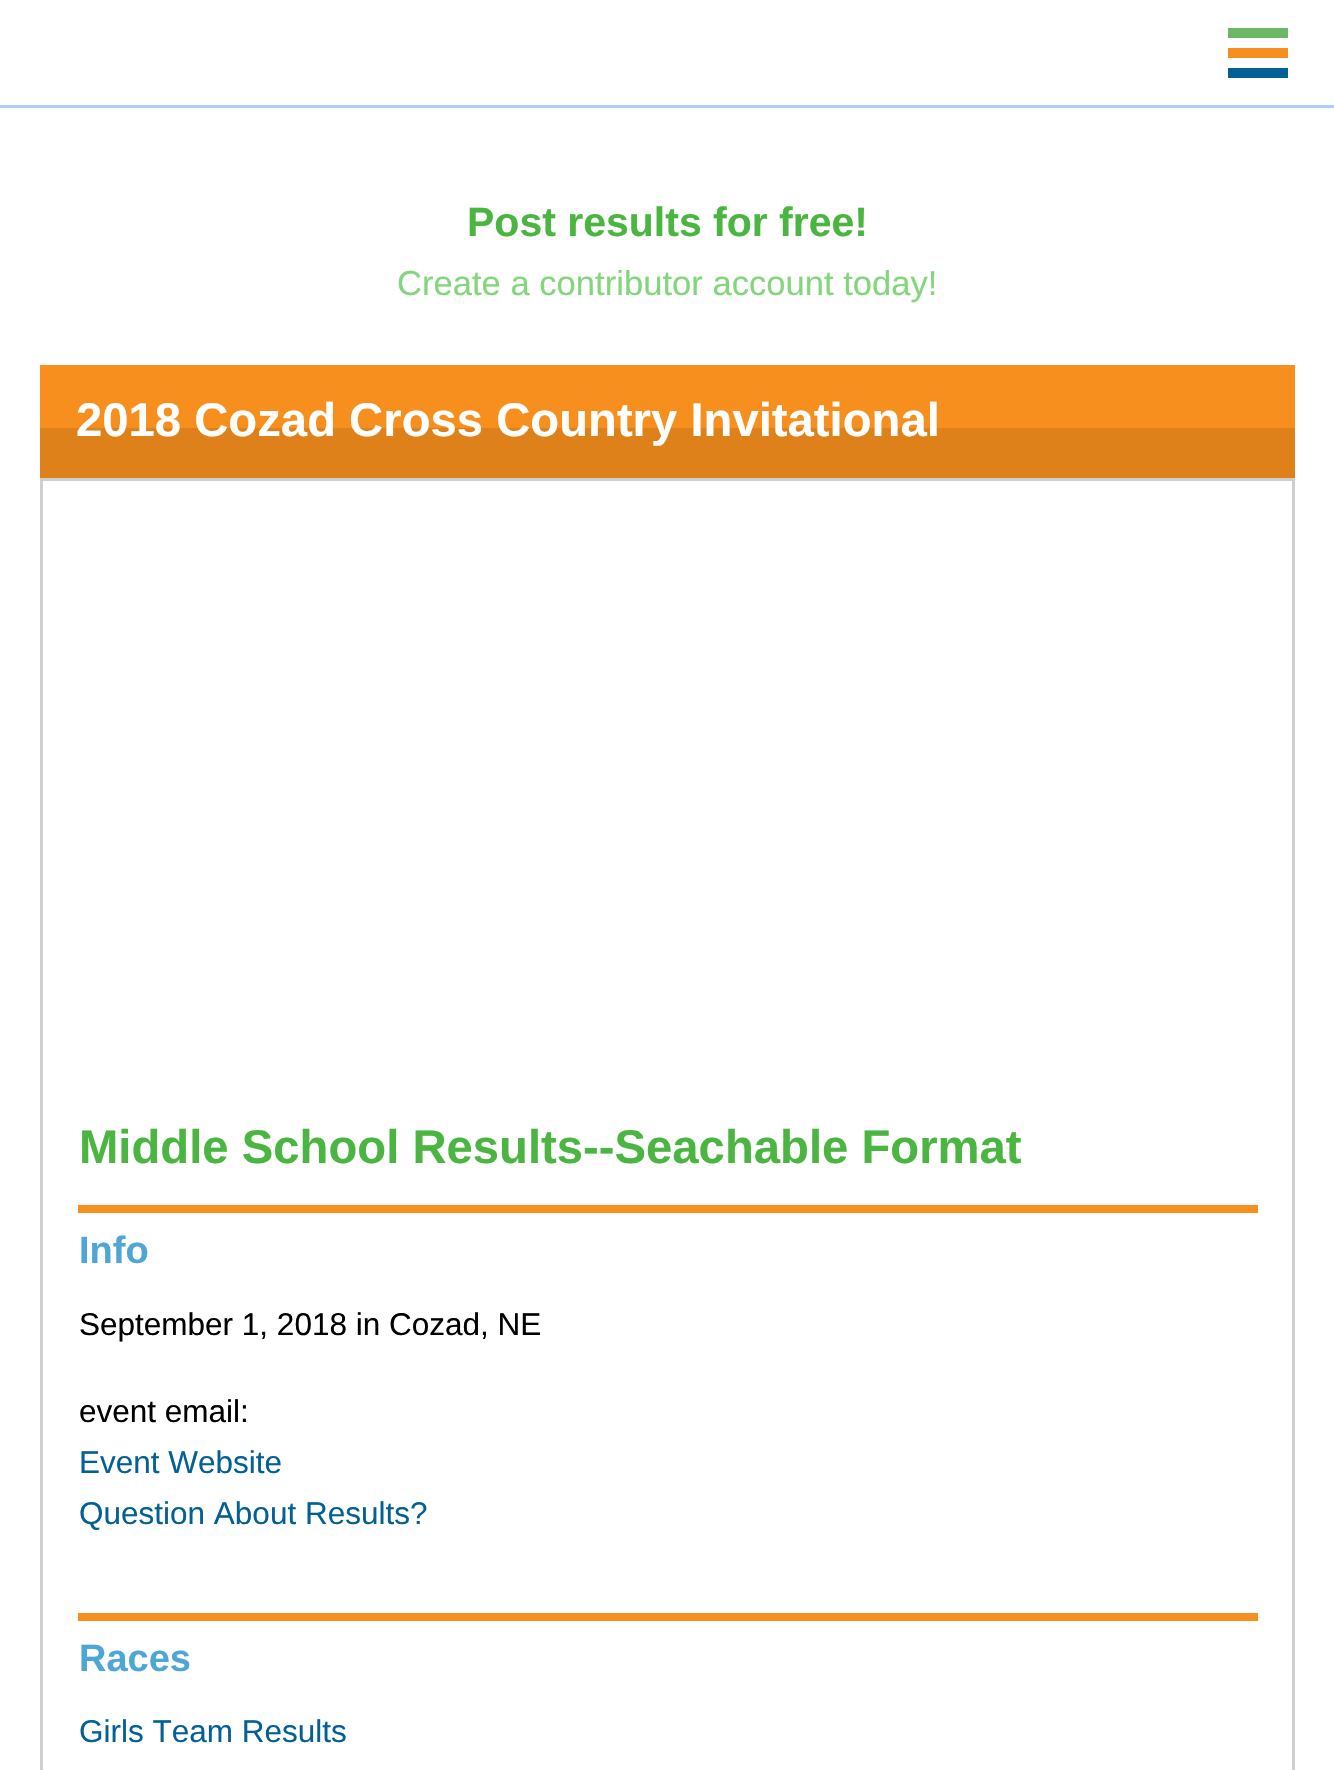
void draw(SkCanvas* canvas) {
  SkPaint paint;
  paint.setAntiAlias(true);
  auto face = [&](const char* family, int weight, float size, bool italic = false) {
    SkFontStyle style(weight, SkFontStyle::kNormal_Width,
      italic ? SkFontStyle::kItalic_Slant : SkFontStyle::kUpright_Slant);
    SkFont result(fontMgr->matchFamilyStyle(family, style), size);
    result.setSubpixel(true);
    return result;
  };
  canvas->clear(0xffffffff);
  {
    const struct { float x, y, w, h; SkColor color; } items[] = {
      {0, 105, 1334, 3, 0xffacd0f7},
      {1228, 28, 60, 10, 0xff6bb766},
      {1228, 48, 60, 10, 0xfff78f1e},
      {1228, 68, 60, 10, 0xff036095},
      {40, 365, 1255, 63, 0xfff78f1e},
      {40, 428, 1255, 50, 0xffde811b},
    };
    for (auto [x, y, w, h, color] : items) {
      paint.setColor(color);
      canvas->drawRect(SkRect::MakeXYWH(x, y, w, h), paint);
    }
  }
  paint.setStroke(true);
  paint.setStrokeWidth(3);
  paint.setColor(0xffcfcfcf);
  canvas->drawRect(SkRect::MakeXYWH(41.5f, 479.5f, 1252, 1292), paint);
  paint.setStroke(false);
  paint.setColor(0xfff78f1e);
  canvas->drawRect(SkRect::MakeXYWH(78, 1205, 1180, 8), paint);
  canvas->drawRect(SkRect::MakeXYWH(78, 1613, 1180, 8), paint);
  auto f0 = face("Liberation Sans", 700, 41);
  paint.setColor(0xff4ab641);
  canvas->drawString("Post results for free!", 467, 236, f0, paint);
  auto f1 = face("Liberation Sans", 400, 34.6f);
  paint.setColor(0xff84d67d);
  canvas->drawString("Create a contributor account today!", 397, 295, f1, paint);
  auto f2 = face("Liberation Sans", 700, 47.25f);
  paint.setColor(0xffffffff);
  canvas->drawString("2018 Cozad Cross Country Invitational", 76, 436, f2, paint);
  paint.setColor(0xff4ab641);
  canvas->drawString("Middle School Results--Seachable Format", 79, 1163, f2, paint);
  auto f3 = face("Liberation Sans", 700, 38);
  paint.setColor(0xff4da6d6);
  canvas->drawString("Info", 79, 1263, f3, paint);
  auto f4 = face("Liberation Sans", 400, 31.5f);
  paint.setColor(0xff000000);
  canvas->drawString("September 1, 2018 in Cozad, NE", 79, 1335, f4, paint);
  canvas->drawString("event email:", 79, 1422, f4, paint);
  paint.setColor(0xff036095);
  canvas->drawString("Event Website", 79, 1473, f4, paint);
  canvas->drawString("Question About Results?", 79, 1524, f4, paint);
  paint.setColor(0xff4da6d6);
  canvas->drawString("Races", 79, 1671, f3, paint);
  paint.setColor(0xff036095);
  canvas->drawString("Girls Team Results", 79, 1742, f4, paint);
}
